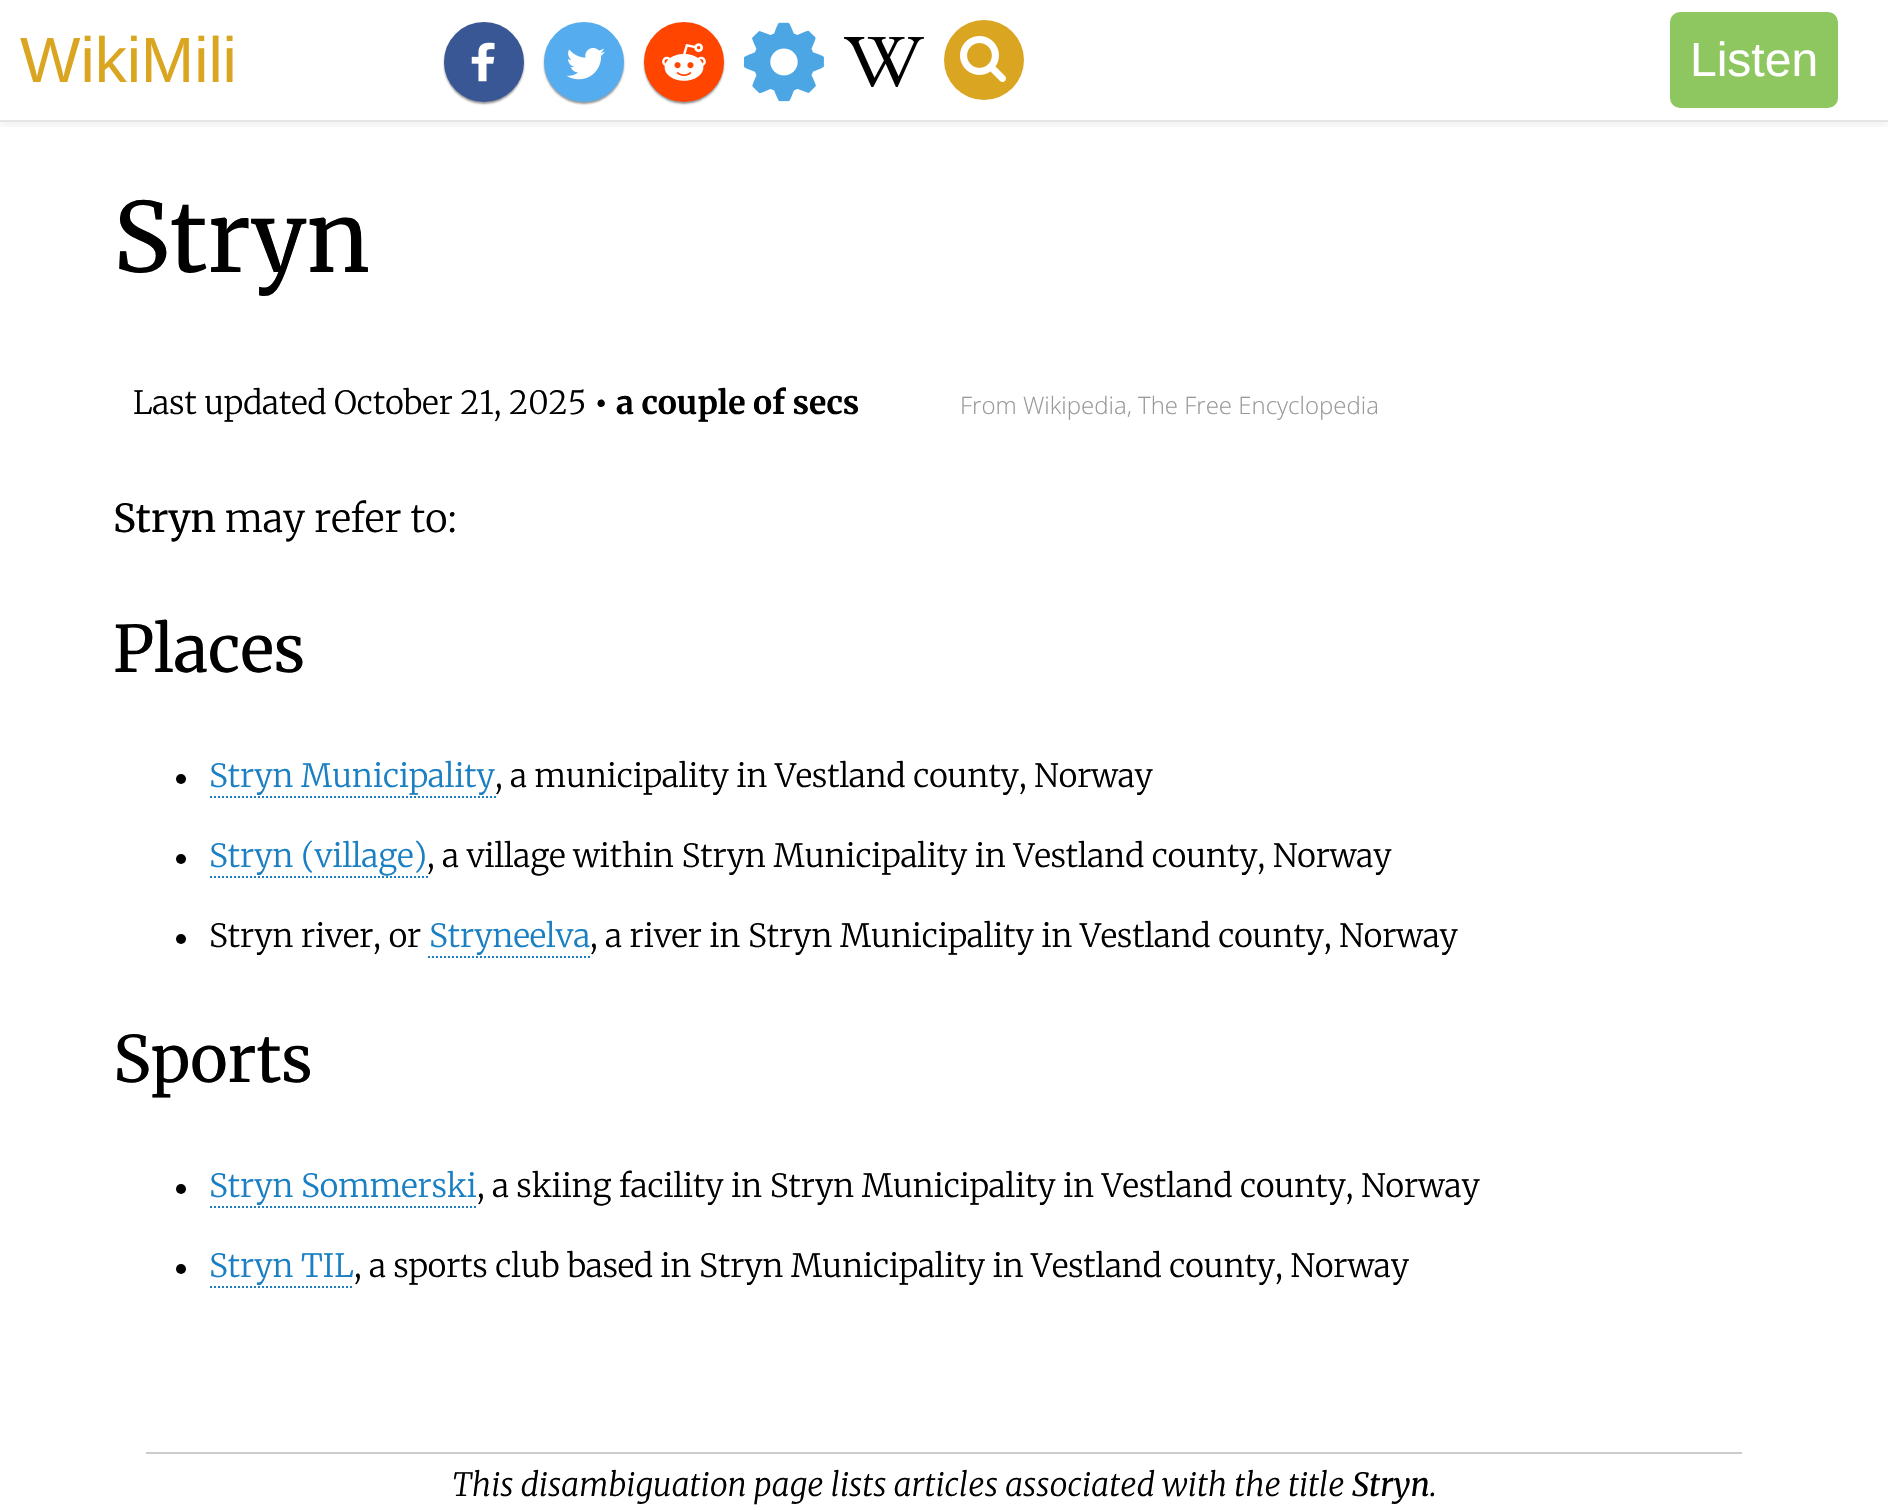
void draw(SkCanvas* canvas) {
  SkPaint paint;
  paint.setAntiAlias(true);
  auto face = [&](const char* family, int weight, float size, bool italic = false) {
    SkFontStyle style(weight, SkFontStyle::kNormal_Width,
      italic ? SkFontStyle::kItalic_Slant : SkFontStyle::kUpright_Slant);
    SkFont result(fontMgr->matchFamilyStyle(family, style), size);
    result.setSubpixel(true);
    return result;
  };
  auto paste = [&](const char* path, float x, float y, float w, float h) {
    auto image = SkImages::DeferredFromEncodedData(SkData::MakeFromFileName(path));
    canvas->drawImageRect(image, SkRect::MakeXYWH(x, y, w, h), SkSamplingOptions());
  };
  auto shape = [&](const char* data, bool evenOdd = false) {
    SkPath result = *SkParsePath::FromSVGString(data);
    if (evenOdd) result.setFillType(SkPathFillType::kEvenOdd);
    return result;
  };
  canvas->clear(0xffffffff);
  canvas->save();
  canvas->clipRect(SkRect::MakeXYWH(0, 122, 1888, 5));
  paint.setColor(0x0d000000);
  paint.setMaskFilter(SkMaskFilter::MakeBlur(kNormal_SkBlurStyle, 4));
  canvas->drawRect(SkRect::MakeXYWH(0, 4, 1888, 122), paint);
  paint.setMaskFilter(nullptr);
  canvas->restore();
  paint.setColor(0xffe6e6e6);
  canvas->drawRect(SkRect::MakeXYWH(0, 120, 1888, 2), paint);
  paint.setColor(0x66000000);
  paint.setMaskFilter(SkMaskFilter::MakeBlur(kNormal_SkBlurStyle, 1));
  canvas->drawRoundRect(SkRect::MakeXYWH(444, 24, 80, 80), 40, 40, paint);
  paint.setMaskFilter(nullptr);
  paint.setColor(0xff3a5795);
  canvas->drawCircle(484, 62, 34, paint);
  paint.setStroke(true);
  paint.setStrokeWidth(12);
  canvas->drawCircle(484, 62, 34, paint);
  paste("img/1.png", 471, 42, 24, 40);
  paint.setStroke(false);
  paint.setColor(0x66000000);
  paint.setMaskFilter(SkMaskFilter::MakeBlur(kNormal_SkBlurStyle, 1));
  canvas->drawRoundRect(SkRect::MakeXYWH(544, 24, 80, 80), 40, 40, paint);
  paint.setMaskFilter(nullptr);
  paint.setColor(0xff55acee);
  canvas->drawCircle(584, 62, 34, paint);
  paint.setStroke(true);
  canvas->drawCircle(584, 62, 34, paint);
  paste("img/2.png", 566, 48, 39, 32);
  paint.setStroke(false);
  paint.setColor(0x66000000);
  paint.setMaskFilter(SkMaskFilter::MakeBlur(kNormal_SkBlurStyle, 1));
  canvas->drawRoundRect(SkRect::MakeXYWH(644, 24, 80, 80), 40, 40, paint);
  paint.setMaskFilter(nullptr);
  paint.setColor(0xffff4500);
  canvas->drawCircle(684, 62, 34, paint);
  paint.setStroke(true);
  canvas->drawCircle(684, 62, 34, paint);
  paste("img/3.png", 662, 43, 44, 38);
  paste("img/4.png", 744, 22, 80, 80);
  paste("img/5.png", 844, 37, 80, 50);
  paint.setStroke(false);
  paint.setColor(0xffdaa520);
  canvas->drawCircle(984, 60, 40, paint);
  paste("img/6.png", 960, 36, 46, 46);
  paint.setColor(0xff8ec760);
  canvas->drawRoundRect(SkRect::MakeXYWH(1670, 12, 168, 96), 10, 10, paint);
  paint.setColor(0xff000000);
  canvas->drawCircle(181, 779, 5, paint);
  paint.setStroke(true);
  paint.setStrokeWidth(2);
  paint.setColor(0xff1a7fc3);
  paint.setPathEffect(SkDashPathEffect::Make({{2, 2}}, 0));
  canvas->drawPath(shape("M210 797H496"), paint);
  paint.setPathEffect(nullptr);
  paint.setStroke(false);
  paint.setColor(0xff000000);
  canvas->drawCircle(181, 859, 5, paint);
  paint.setStroke(true);
  paint.setColor(0xff1a7fc3);
  paint.setPathEffect(SkDashPathEffect::Make({{2, 2}}, 0));
  canvas->drawPath(shape("M210 877H428"), paint);
  paint.setPathEffect(nullptr);
  paint.setStroke(false);
  paint.setColor(0xff000000);
  canvas->drawCircle(181, 939, 5, paint);
  paint.setStroke(true);
  paint.setColor(0xff1a7fc3);
  paint.setPathEffect(SkDashPathEffect::Make({{2, 2}}, 0));
  canvas->drawPath(shape("M428 957H590"), paint);
  paint.setPathEffect(nullptr);
  paint.setStroke(false);
  paint.setColor(0xff000000);
  canvas->drawCircle(181, 1189, 5, paint);
  paint.setStroke(true);
  paint.setColor(0xff1a7fc3);
  paint.setPathEffect(SkDashPathEffect::Make({{2, 2}}, 0));
  canvas->drawPath(shape("M210 1207H478"), paint);
  paint.setPathEffect(nullptr);
  paint.setStroke(false);
  paint.setColor(0xff000000);
  canvas->drawCircle(181, 1269, 5, paint);
  paint.setStroke(true);
  paint.setColor(0xff1a7fc3);
  paint.setPathEffect(SkDashPathEffect::Make({{2, 2}}, 0));
  canvas->drawPath(shape("M210 1287H354"), paint);
  paint.setPathEffect(nullptr);
  paint.setStroke(false);
  paint.setColor(0xffcccccc);
  canvas->drawRect(SkRect::MakeXYWH(146, 1452, 1596, 2), paint);
  auto f0 = face("Liberation Sans", 400, 64);
  paint.setColor(0xffdaa520);
  canvas->drawString("WikiMili", 20, 82, f0, paint);
  auto f1 = face("Liberation Sans", 400, 48);
  paint.setColor(0xffffffff);
  canvas->drawString("Listen", 1690, 76, f1, paint);
  auto f2 = face("Merriweather", 400, 96);
  paint.setColor(0xff000000);
  canvas->drawString("Stryn", 113, 272, f2, paint);
  auto f3 = face("Merriweather", 300, 32);
  canvas->drawString("Last updated October 21, 2025", 133, 414, f3, paint);
  auto f4 = face("Merriweather", 700, 32);
  canvas->drawString("• a couple of secs", 594, 414, f4, paint);
  auto f5 = face("Open Sans", 300, 24);
  paint.setColor(0xff999999);
  canvas->drawString("From Wikipedia, The Free Encyclopedia", 960, 414, f5, paint);
  auto f6 = face("Merriweather", 400, 38.5f);
  paint.setColor(0xff000000);
  canvas->drawString("Stryn", 113, 532, f6, paint);
  auto f7 = face("Merriweather", 300, 38.5f);
  canvas->drawString("may refer to:", 225, 532, f7, paint);
  auto f8 = face("Merriweather", 400, 64);
  canvas->drawString("Places", 113, 672, f8, paint);
  paint.setColor(0xff1a7fc3);
  canvas->drawString("Stryn Municipality", 209, 787, f3, paint);
  paint.setColor(0xff000000);
  canvas->drawString(", a municipality in Vestland county, Norway", 495, 787, f3, paint);
  paint.setColor(0xff1a7fc3);
  canvas->drawString("Stryn (village)", 209, 867, f3, paint);
  paint.setColor(0xff000000);
  canvas->drawString(", a village within Stryn Municipality in Vestland county, Norway", 427, 867, f3, paint);
  canvas->drawString("Stryn river, or", 209, 947, f3, paint);
  paint.setColor(0xff1a7fc3);
  canvas->drawString("Stryneelva", 429, 947, f3, paint);
  paint.setColor(0xff000000);
  canvas->drawString(", a river in Stryn Municipality in Vestland county, Norway", 590, 947, f3, paint);
  canvas->drawString("Sports", 113, 1082, f8, paint);
  paint.setColor(0xff1a7fc3);
  canvas->drawString("Stryn Sommerski", 209, 1197, f3, paint);
  paint.setColor(0xff000000);
  canvas->drawString(", a skiing facility in Stryn Municipality in Vestland county, Norway", 477, 1197, f3, paint);
  paint.setColor(0xff1a7fc3);
  canvas->drawString("Stryn TIL", 209, 1277, f3, paint);
  paint.setColor(0xff000000);
  canvas->drawString(", a sports club based in Stryn Municipality in Vestland county, Norway", 354, 1277, f3, paint);
  auto f9 = face("Merriweather", 300, 32, true);
  canvas->drawString("This disambiguation page lists articles associated with the title", 452, 1496, f9, paint);
  auto f10 = face("Merriweather", 400, 32, true);
  canvas->drawString("Stryn", 1352, 1496, f10, paint);
  canvas->drawString(".", 1430, 1496, f9, paint);
}
